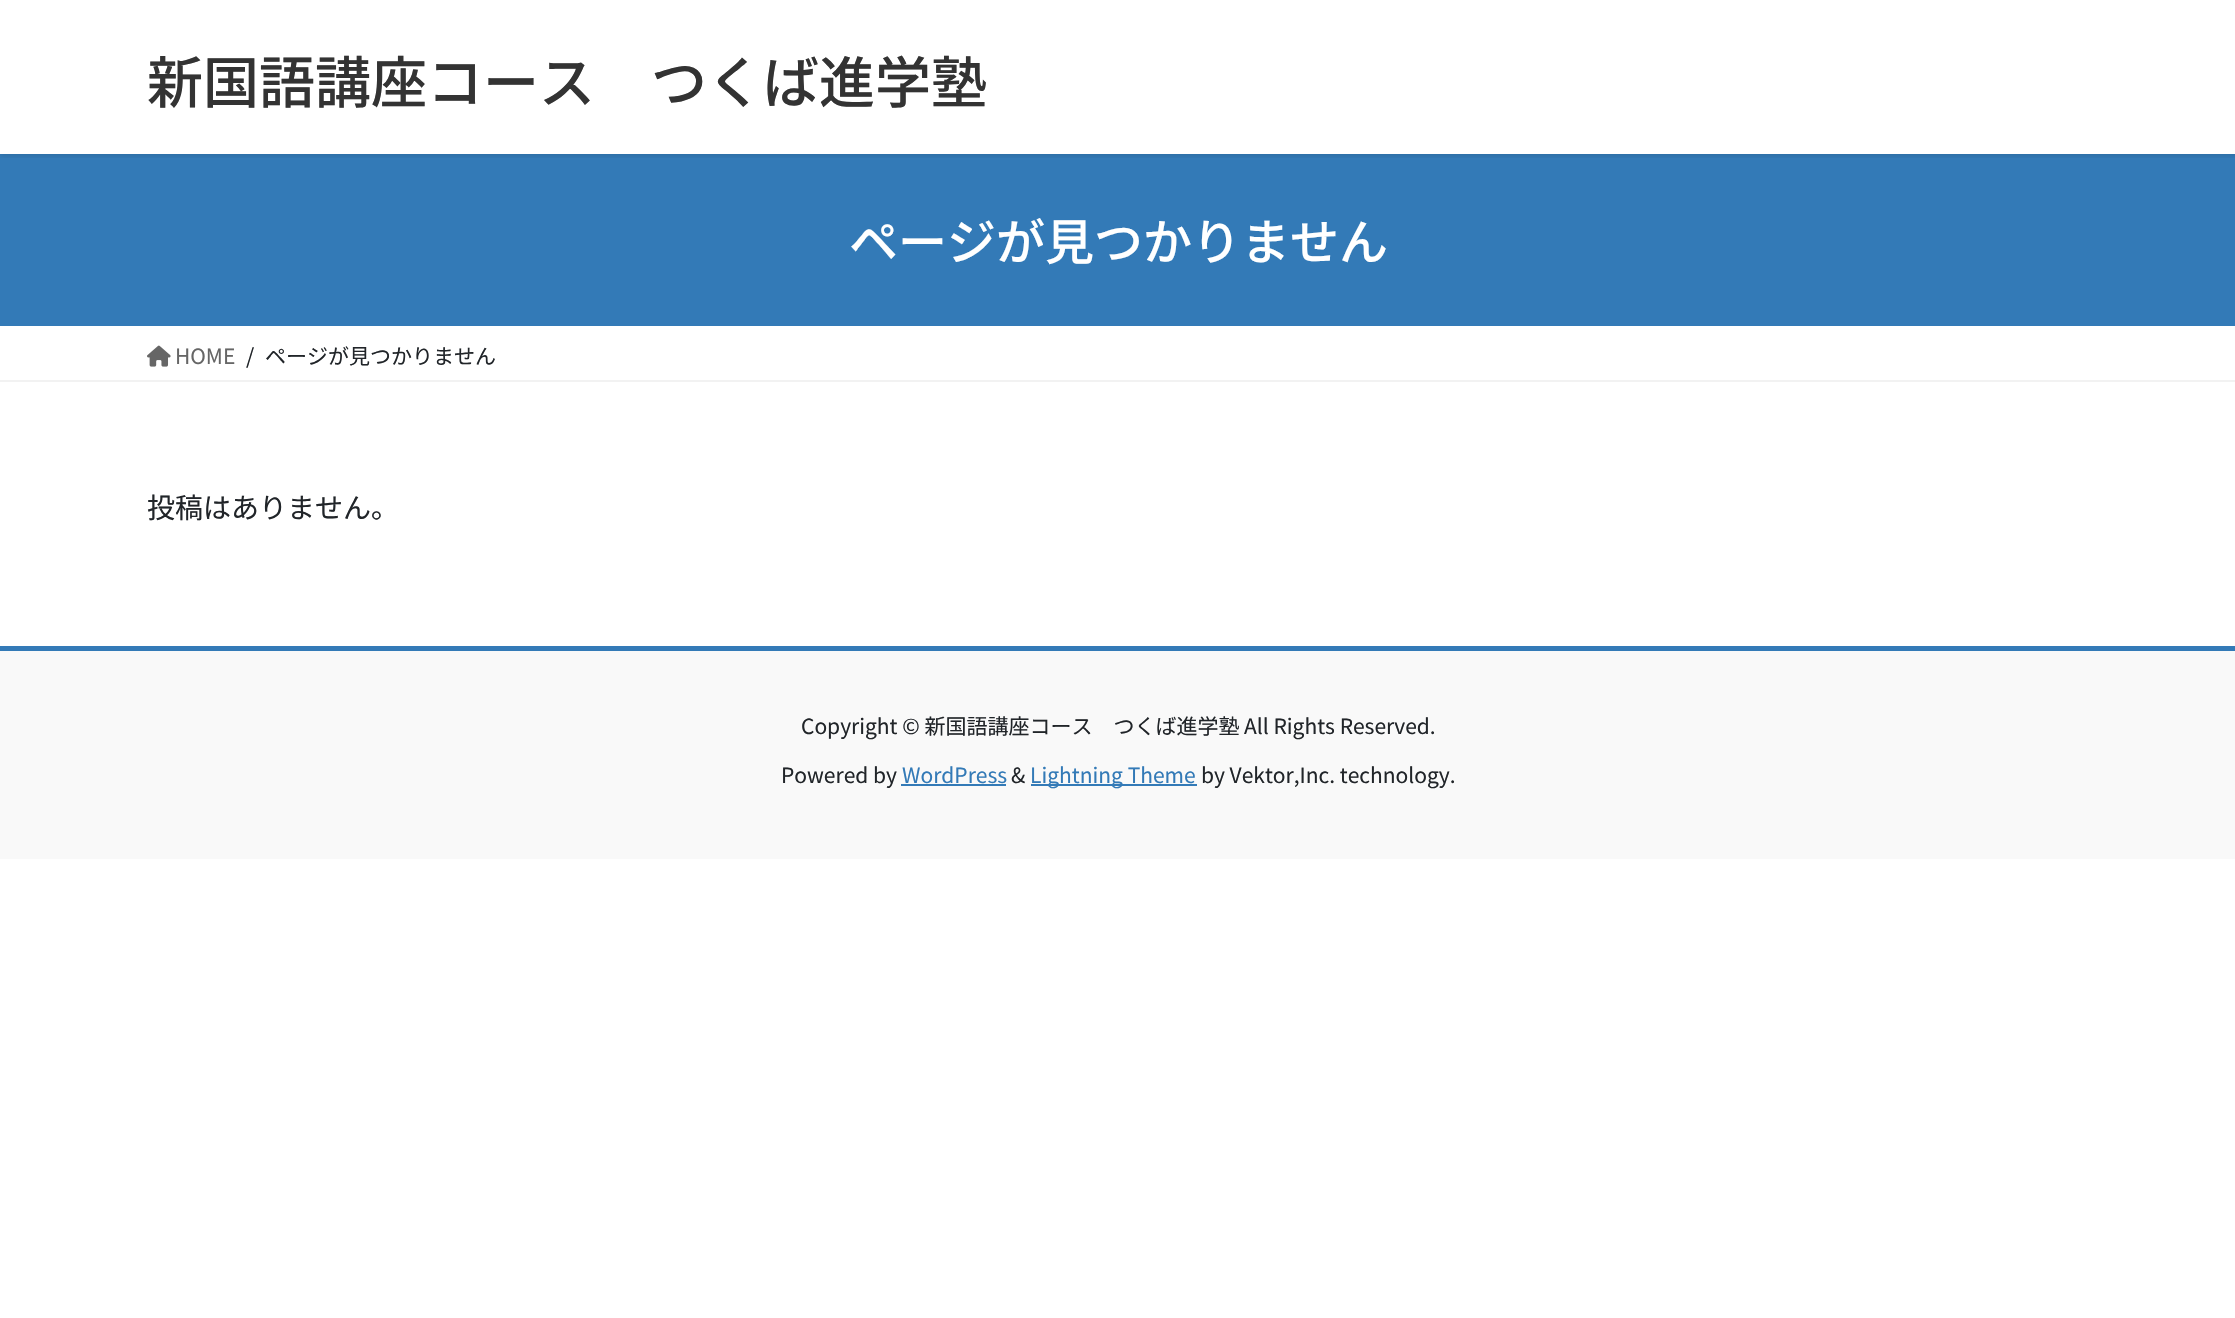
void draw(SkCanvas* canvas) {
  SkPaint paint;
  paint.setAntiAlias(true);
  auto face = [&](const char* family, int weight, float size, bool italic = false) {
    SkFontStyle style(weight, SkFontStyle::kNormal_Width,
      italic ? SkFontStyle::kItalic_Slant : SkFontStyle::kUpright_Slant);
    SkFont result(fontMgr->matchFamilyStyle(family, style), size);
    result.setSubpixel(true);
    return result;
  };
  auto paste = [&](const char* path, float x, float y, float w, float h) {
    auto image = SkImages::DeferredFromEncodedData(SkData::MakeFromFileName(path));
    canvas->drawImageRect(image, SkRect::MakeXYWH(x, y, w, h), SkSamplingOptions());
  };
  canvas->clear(0xffffffff);
  paint.setColor(0xff337ab7);
  canvas->drawRect(SkRect::MakeXYWH(0, 154, 2235, 172), paint);
  canvas->save();
  canvas->clipRect(SkRect::MakeXYWH(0, 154, 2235, 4));
  paint.setColor(0x1a000000);
  paint.setMaskFilter(SkMaskFilter::MakeBlur(kNormal_SkBlurStyle, 2.5f));
  canvas->drawRect(SkRect::MakeXYWH(0, 2, 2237, 154), paint);
  paint.setMaskFilter(nullptr);
  canvas->restore();
  paint.setColor(0xfff2f2f2);
  canvas->drawRect(SkRect::MakeXYWH(0, 380, 2235, 2), paint);
  paste("img/1.png", 147, 345, 24, 22);
  {
    const struct { float x, y, w, h; SkColor color; } items[] = {
      {0, 651, 2235, 208, 0xfff9f9f9},
      {0, 646, 2235, 5, 0xff337ab7},
      {901, 784, 105, 2, 0xff337ab7},
      {1031, 784, 166, 2, 0xff337ab7},
    };
    for (auto [x, y, w, h, color] : items) {
      paint.setColor(color);
      canvas->drawRect(SkRect::MakeXYWH(x, y, w, h), paint);
    }
  }
  auto f0 = face("Noto Sans JP", 500, 56);
  paint.setColor(0xff333333);
  canvas->drawString("新国語講座コース　つくば進学塾", 147, 103, f0, paint);
  auto f1 = face("Noto Sans JP", 500, 49);
  paint.setColor(0xffffffff);
  canvas->drawString("ページが見つかりません", 849, 260, f1, paint);
  auto f2 = face("Noto Sans JP", 400, 21);
  paint.setColor(0xff666666);
  canvas->drawString("HOME", 175, 364, f2, paint);
  paint.setColor(0xff212529);
  canvas->drawString("/", 246, 364, f2, paint);
  canvas->drawString("ページが見つかりません", 265, 364, f2, paint);
  auto f3 = face("Noto Sans JP", 400, 28);
  canvas->drawString("投稿はありません。", 147, 518, f3, paint);
  canvas->drawString("Copyright © 新国語講座コース　つくば進学塾 All Rights Reserved.", 801, 734, f2, paint);
  canvas->drawString("Powered by", 781, 783, f2, paint);
  paint.setColor(0xff337ab7);
  canvas->drawString("WordPress", 902, 783, f2, paint);
  paint.setColor(0xff212529);
  canvas->drawString("&", 1011, 783, f2, paint);
  paint.setColor(0xff337ab7);
  canvas->drawString("Lightning Theme", 1030, 783, f2, paint);
  paint.setColor(0xff212529);
  canvas->drawString("by Vektor,Inc. technology.", 1201, 783, f2, paint);
}
